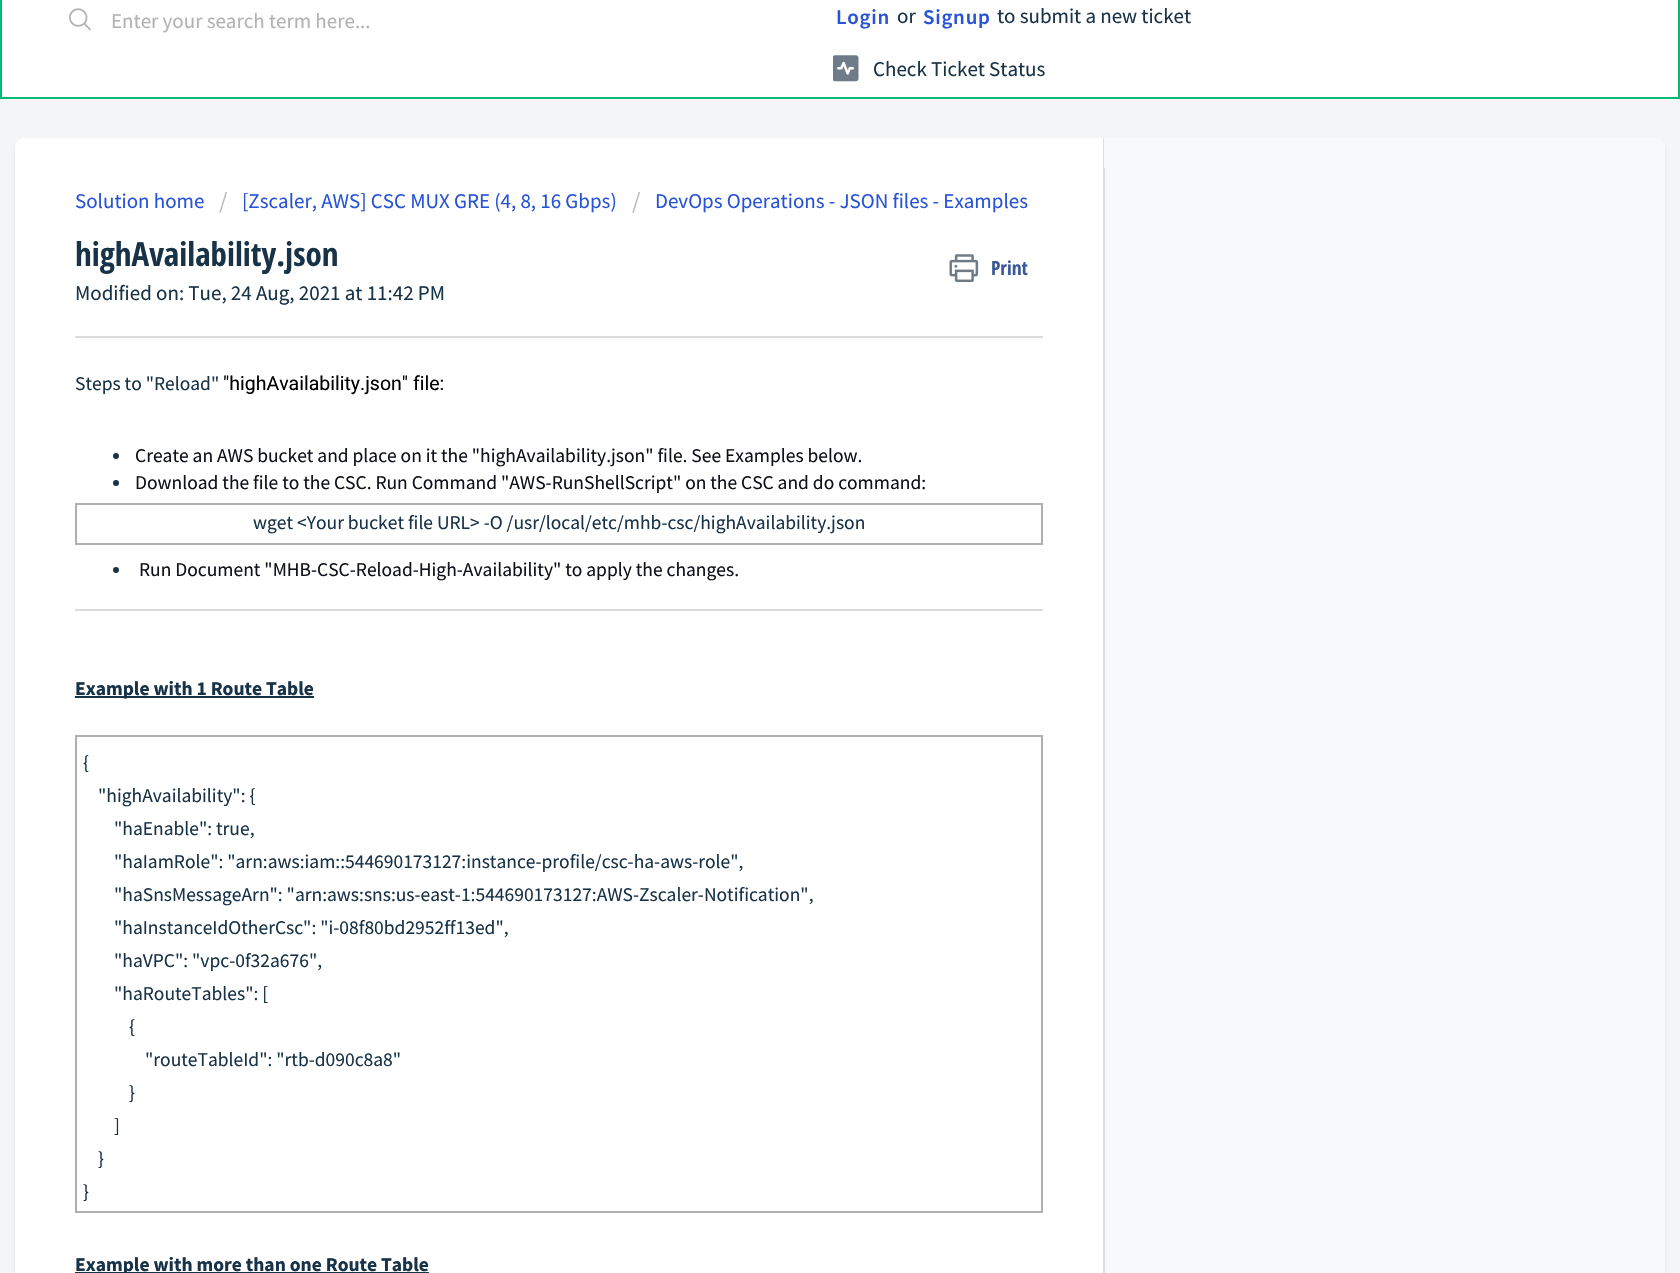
void draw(SkCanvas* canvas) {
  SkPaint paint;
  paint.setAntiAlias(true);
  auto face = [&](const char* family, int weight, float size, bool italic = false) {
    SkFontStyle style(weight, SkFontStyle::kNormal_Width,
      italic ? SkFontStyle::kItalic_Slant : SkFontStyle::kUpright_Slant);
    SkFont result(fontMgr->matchFamilyStyle(family, style), size);
    result.setSubpixel(true);
    return result;
  };
  auto writeSpaced = [&](const char* s, float x, float y, const SkFont& font, const SkPaint& ink, float letter, float word) {
    std::vector<SkGlyphID> glyphs(font.countText(s, strlen(s), SkTextEncoding::kUTF8));
    std::vector<float> xs(glyphs.size());
    font.textToGlyphs(s, strlen(s), SkTextEncoding::kUTF8, glyphs);
    font.getXPos(glyphs, xs, x);
    float extra = 0;
    for (size_t i = 0; i < glyphs.size(); i++) {
      xs[i] += extra;
      extra += letter + word * (glyphs[i] == font.unicharToGlyph(' '));
    }
    canvas->drawTextBlob(SkTextBlob::MakeFromPosHGlyphs(glyphs, xs, y, font), 0, 0, ink);
  };
  auto paste = [&](const char* path, float x, float y, float w, float h) {
    auto image = SkImages::DeferredFromEncodedData(SkData::MakeFromFileName(path));
    canvas->drawImageRect(image, SkRect::MakeXYWH(x, y, w, h), SkSamplingOptions());
  };
  auto shape = [&](const char* data, bool evenOdd = false) {
    SkPath result = *SkParsePath::FromSVGString(data);
    if (evenOdd) result.setFillType(SkPathFillType::kEvenOdd);
    return result;
  };
  canvas->clear(0xfff3f5f7);
  paint.setColor(0xffffffff);
  canvas->drawRect(SkRect::MakeXYWH(1, -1, 1678, 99), paint);
  paint.setStroke(true);
  paint.setStrokeWidth(2);
  paint.setColor(0xff02b875);
  canvas->drawRect(SkRect::MakeXYWH(1, -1, 1678, 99), paint);
  paste("img/1.png", 69, 8, 22, 23);
  paste("img/2.png", 833, 55, 26, 27);
  paint.setStroke(false);
  paint.setColor(0x263f3f44);
  paint.setMaskFilter(SkMaskFilter::MakeBlur(kNormal_SkBlurStyle, 1.5f));
  canvas->drawRoundRect(SkRect::MakeXYWH(15, 140, 1650, 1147), 9, 9, paint);
  paint.setMaskFilter(nullptr);
  paint.setColor(0xfff8f9fa);
  canvas->drawRoundRect(SkRect::MakeXYWH(15, 138, 1650, 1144), 9, 9, paint);
  paint.setColor(0xffffffff);
  canvas->drawPath(shape("M24 138H1104V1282H24C19 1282 15 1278 15 1273V147C15 142 19 138 24 138Z"), paint);
  paint.setColor(0xffdadfe3);
  canvas->drawRect(SkRect::MakeXYWH(1103, 138, 2, 1135), paint);
  paint.setColor(0xfff8f9fa);
  canvas->drawPath(shape("M1104 138H1656C1661 138 1665 142 1665 147V159C1665 164 1661 168 1656 168H1104Z"), paint);
  paste("img/3.png", 949, 254, 30, 28);
  paint.setColor(0xffdcdcdc);
  canvas->drawRect(SkRect::MakeXYWH(75, 336, 968, 2), paint);
  paint.setColor(0xff183247);
  canvas->drawCircle(116, 456, 3, paint);
  canvas->drawCircle(116, 483, 3, paint);
  {
    const struct { float x, y, w, h; SkColor color; } items[] = {
      {75, 503, 968, 2, 0xffafafaf},
      {1041, 503, 2, 42, 0xffafafaf},
      {75, 543, 968, 2, 0xffafafaf},
      {75, 503, 2, 42, 0xffafafaf},
    };
    for (auto [x, y, w, h, color] : items) {
      paint.setColor(color);
      canvas->drawRect(SkRect::MakeXYWH(x, y, w, h), paint);
    }
  }
  paint.setColor(0xff183247);
  canvas->drawCircle(116, 570, 3, paint);
  {
    const struct { float x, y, w, h; SkColor color; } items[] = {
      {75, 609, 968, 2, 0xffdcdcdc},
      {75, 696, 239, 2, 0xff183247},
      {75, 735, 968, 2, 0xffafafaf},
      {1041, 735, 2, 477, 0xffafafaf},
      {75, 1211, 968, 2, 0xffafafaf},
      {75, 735, 2, 477, 0xffafafaf},
      {75, 1272, 354, 1, 0xff183247},
    };
    for (auto [x, y, w, h, color] : items) {
      paint.setColor(color);
      canvas->drawRect(SkRect::MakeXYWH(x, y, w, h), paint);
    }
  }
  auto f0 = face("Source Sans Pro", 400, 21);
  paint.setColor(0xffb2b2b2);
  canvas->drawString("Enter your search term here...", 111, 28, f0, paint);
  auto f1 = face("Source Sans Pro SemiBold", 600, 21);
  paint.setColor(0xff2753d7);
  writeSpaced("Login", 836, 24, f1, paint, 0.75f, 0);
  paint.setColor(0xff183247);
  canvas->drawString("or", 897, 23, f0, paint);
  paint.setColor(0xff2753d7);
  writeSpaced("Signup", 923, 24, f1, paint, 0.75f, 0);
  paint.setColor(0xff183247);
  canvas->drawString("to submit a new ticket", 997, 23, f0, paint);
  canvas->drawString("Check Ticket Status", 873, 76, f0, paint);
  paint.setColor(0xff2753d7);
  canvas->drawString("Solution home", 75, 208, f0, paint);
  auto f2 = face("Source Sans Pro", 400, 24);
  paint.setColor(0xffbbbbbb);
  canvas->drawString("/", 219, 209, f2, paint);
  paint.setColor(0xff2753d7);
  canvas->drawString("[Zscaler, AWS] CSC MUX GRE (4, 8, 16 Gbps)", 242, 208, f0, paint);
  paint.setColor(0xffbbbbbb);
  canvas->drawString("/", 632, 209, f2, paint);
  paint.setColor(0xff2753d7);
  canvas->drawString("DevOps Operations - JSON files - Examples", 655, 208, f0, paint);
  auto f3 = face("Open Sans Condensed", 700, 33);
  paint.setColor(0xff183247);
  canvas->drawString("highAvailability.json", 75, 266, f3, paint);
  auto f4 = face("Open Sans Condensed", 700, 19.5f);
  paint.setColor(0xff3b5998);
  canvas->drawString("Print", 991, 275, f4, paint);
  paint.setColor(0xff183247);
  canvas->drawString("Modified on: Tue, 24 Aug, 2021 at 11:42 PM", 75, 300, f0, paint);
  auto f5 = face("Source Sans Pro", 400, 19.5f);
  canvas->drawString("Steps to \"Reload\"", 75, 390, f5, paint);
  auto f6 = face("Roboto", 400, 19.5f);
  paint.setColor(0xff000000);
  canvas->drawString("\"highAvailability.json\" file:", 223, 390, f6, paint);
  paint.setColor(0xff0e101a);
  canvas->drawString("Create an AWS bucket and place on it the \"highAvailability.json\" file. See Examples below.", 135, 462, f5, paint);
  canvas->drawString("Download the file to the CSC. Run Command \"AWS-RunShellScript\" on the CSC and do command:", 135, 489, f5, paint);
  paint.setColor(0xff183247);
  canvas->drawString("wget <Your bucket file URL> -O /usr/local/etc/mhb-csc/highAvailability.json", 253, 529, f5, paint);
  paint.setColor(0xff0e101a);
  canvas->drawString("Run Document \"MHB-CSC-Reload-High-Availability\" to apply the changes.", 139, 576, f5, paint);
  auto f7 = face("Source Sans Pro", 700, 19.5f);
  paint.setColor(0xff183247);
  canvas->drawString("Example with 1 Route Table", 75, 695, f7, paint);
  {
    const struct { const char* s; float x, y; } items[] = {
      {"{", 83, 769},
      {"\"highAvailability\": {", 98, 802},
      {"\"haEnable\": true,", 114, 835},
      {"\"haIamRole\": \"arn:aws:iam::544690173127:instance-profile/csc-ha-aws-role\",", 114, 868},
      {"\"haSnsMessageArn\": \"arn:aws:sns:us-east-1:544690173127:AWS-Zscaler-Notification\",", 114, 901},
      {"\"haInstanceIdOtherCsc\": \"i-08f80bd2952ff13ed\",", 114, 934},
      {"\"haVPC\": \"vpc-0f32a676\",", 114, 967},
      {"\"haRouteTables\": [", 114, 1000},
      {"{", 129, 1033},
      {"\"routeTableId\": \"rtb-d090c8a8\"", 145, 1066},
      {"}", 129, 1099},
      {"]", 114, 1132},
      {"}", 98, 1165},
      {"}", 83, 1198},
    };
    for (auto [s, x, y] : items) {
      canvas->drawString(s, x, y, f5, paint);
    }
  }
  canvas->drawString("Example with more than one Route Table", 75, 1271, f7, paint);
}
